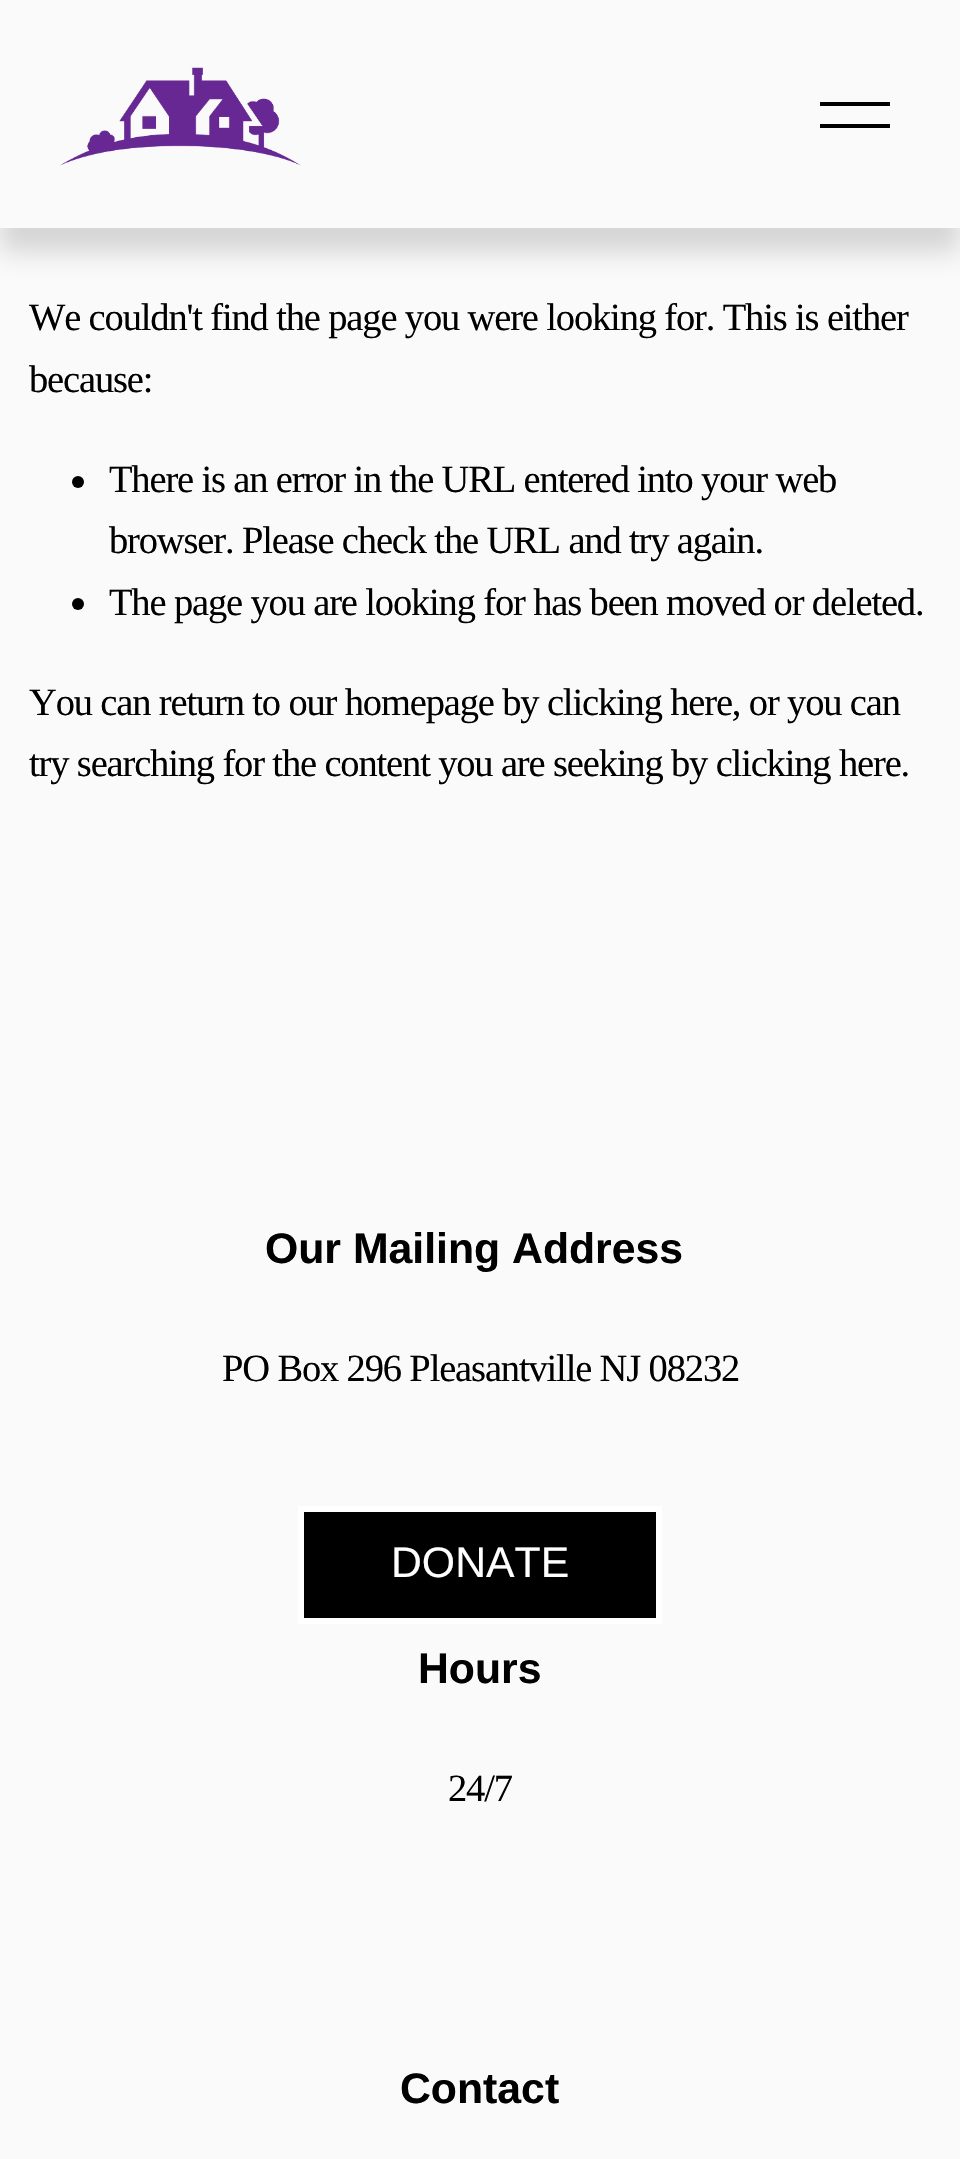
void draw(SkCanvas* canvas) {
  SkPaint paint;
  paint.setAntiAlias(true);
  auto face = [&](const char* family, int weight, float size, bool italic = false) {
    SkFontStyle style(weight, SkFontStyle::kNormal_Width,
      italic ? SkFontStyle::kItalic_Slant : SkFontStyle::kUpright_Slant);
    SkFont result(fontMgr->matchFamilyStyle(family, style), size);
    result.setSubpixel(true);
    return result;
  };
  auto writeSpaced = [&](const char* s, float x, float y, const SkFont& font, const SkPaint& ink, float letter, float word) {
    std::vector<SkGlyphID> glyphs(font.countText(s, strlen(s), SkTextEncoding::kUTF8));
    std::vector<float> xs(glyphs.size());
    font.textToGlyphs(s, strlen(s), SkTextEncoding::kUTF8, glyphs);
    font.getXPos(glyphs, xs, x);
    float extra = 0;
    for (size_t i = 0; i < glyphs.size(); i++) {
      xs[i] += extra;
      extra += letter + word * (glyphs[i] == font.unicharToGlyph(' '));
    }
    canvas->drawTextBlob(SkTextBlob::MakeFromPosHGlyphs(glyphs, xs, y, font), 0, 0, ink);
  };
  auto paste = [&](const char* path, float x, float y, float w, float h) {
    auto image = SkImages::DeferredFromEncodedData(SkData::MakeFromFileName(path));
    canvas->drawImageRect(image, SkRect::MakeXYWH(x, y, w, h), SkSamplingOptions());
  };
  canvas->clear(0xfffafafa);
  canvas->save();
  canvas->clipRect(SkRect::MakeXYWH(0, 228, 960, 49));
  paint.setColor(0xffd5d5d5);
  paint.setMaskFilter(SkMaskFilter::MakeBlur(kNormal_SkBlurStyle, 12));
  canvas->drawRect(SkRect::MakeXYWH(0, 24, 960, 228), paint);
  paint.setMaskFilter(nullptr);
  canvas->restore();
  paste("img/1.png", 59, 67, 242, 99);
  paint.setColor(0xff000000);
  canvas->drawRect(SkRect::MakeXYWH(820, 102, 70, 4), paint);
  canvas->drawRect(SkRect::MakeXYWH(820, 124, 70, 4), paint);
  canvas->drawCircle(78, 482, 6, paint);
  canvas->drawCircle(78, 604, 6, paint);
  canvas->drawRect(SkRect::MakeXYWH(301, 1509, 358, 112), paint);
  paint.setStroke(true);
  paint.setStrokeWidth(6);
  paint.setColor(0xffffffff);
  canvas->drawRect(SkRect::MakeXYWH(301, 1509, 358, 112), paint);
  auto f0 = face("Liberation Serif", 400, 38.5f);
  paint.setStroke(false);
  paint.setColor(0xff000000);
  {
    const struct { const char* s; float x, y; } items[] = {
      {"We couldn't find the page you were looking for. This is either", 29, 330},
      {"because:", 29, 392},
      {"There is an error in the URL entered into your web", 109, 492},
      {"browser. Please check the URL and try again.", 109, 553},
      {"The page you are looking for has been moved or deleted.", 109, 615},
      {"You can return to our homepage by clicking here, or you can", 29, 715},
      {"try searching for the content you are seeking by clicking here.", 29, 776},
    };
    for (auto [s, x, y] : items) {
      writeSpaced(s, x, y, f0, paint, -1.15f, 0);
    }
  }
  auto f1 = face("Liberation Sans", 700, 42.75f);
  canvas->drawString("Our Mailing Address", 265, 1263, f1, paint);
  writeSpaced("PO Box 296 Pleasantville NJ 08232", 222, 1381, f0, paint, -1.15f, 0);
  auto f2 = face("Liberation Sans", 400, 42.75f);
  paint.setColor(0xffffffff);
  canvas->drawString("DONATE", 391, 1577, f2, paint);
  paint.setColor(0xff000000);
  canvas->drawString("Hours", 418, 1683, f1, paint);
  writeSpaced("24/7", 448, 1801, f0, paint, -1.15f, 0);
  canvas->drawString("Contact", 400, 2103, f1, paint);
}
